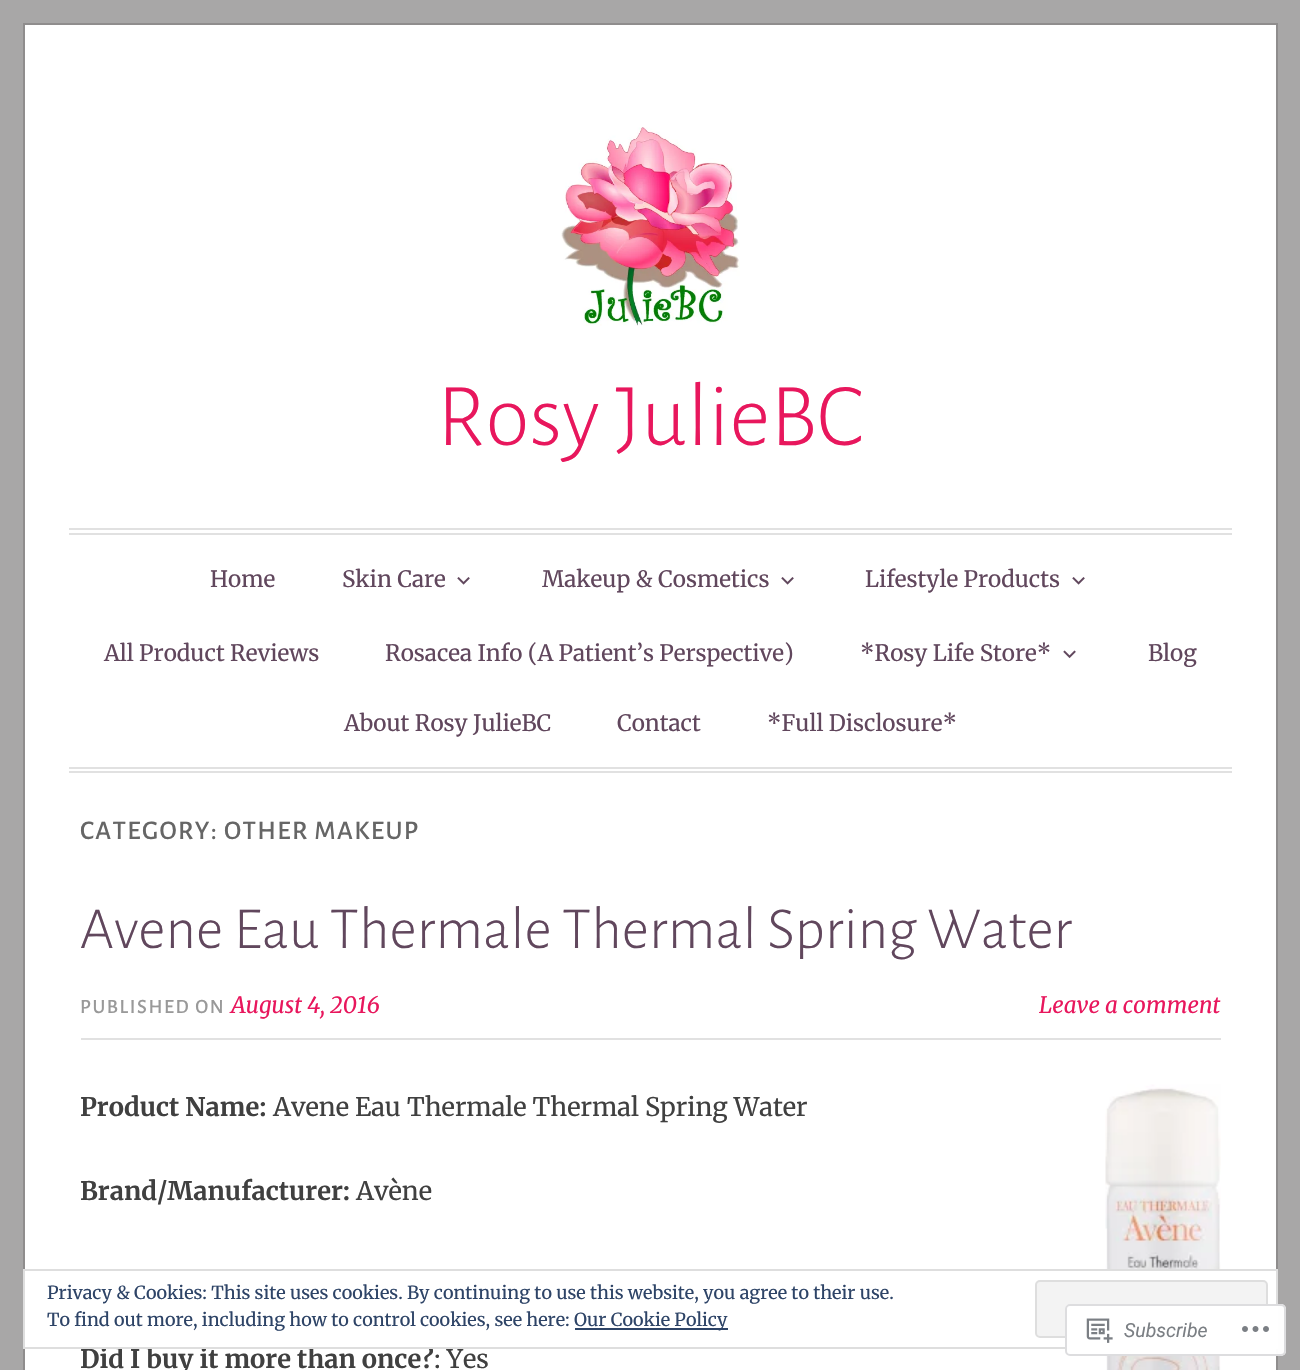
void draw(SkCanvas* canvas) {
  SkPaint paint;
  paint.setAntiAlias(true);
  auto face = [&](const char* family, int weight, float size, bool italic = false) {
    SkFontStyle style(weight, SkFontStyle::kNormal_Width,
      italic ? SkFontStyle::kItalic_Slant : SkFontStyle::kUpright_Slant);
    SkFont result(fontMgr->matchFamilyStyle(family, style), size);
    result.setSubpixel(true);
    return result;
  };
  auto writeSpaced = [&](const char* s, float x, float y, const SkFont& font, const SkPaint& ink, float letter, float word) {
    std::vector<SkGlyphID> glyphs(font.countText(s, strlen(s), SkTextEncoding::kUTF8));
    std::vector<float> xs(glyphs.size());
    font.textToGlyphs(s, strlen(s), SkTextEncoding::kUTF8, glyphs);
    font.getXPos(glyphs, xs, x);
    float extra = 0;
    for (size_t i = 0; i < glyphs.size(); i++) {
      xs[i] += extra;
      extra += letter + word * (glyphs[i] == font.unicharToGlyph(' '));
    }
    canvas->drawTextBlob(SkTextBlob::MakeFromPosHGlyphs(glyphs, xs, y, font), 0, 0, ink);
  };
  auto paste = [&](const char* path, float x, float y, float w, float h) {
    auto image = SkImages::DeferredFromEncodedData(SkData::MakeFromFileName(path));
    canvas->drawImageRect(image, SkRect::MakeXYWH(x, y, w, h), SkSamplingOptions());
  };
  canvas->clear(0xffa8a7a7);
  paint.setColor(0xffffffff);
  canvas->drawRect(SkRect::MakeXYWH(24, 24, 1253, 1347), paint);
  paint.setStroke(true);
  paint.setStrokeWidth(2);
  paint.setColor(0xff8f8d8d);
  canvas->drawRect(SkRect::MakeXYWH(24, 24, 1253, 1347), paint);
  paste("img/1.png", 561, 127, 179, 199);
  paint.setStroke(false);
  {
    const struct { float x, y, w, h; SkColor color; } items[] = {
      {69, 528, 1163, 2, 0xffe1e1e1},
      {69, 533, 1163, 2, 0xffe1e1e1},
      {69, 767, 1163, 2, 0xffe1e1e1},
      {69, 771, 1163, 2, 0xffe1e1e1},
    };
    for (auto [x, y, w, h, color] : items) {
      paint.setColor(color);
      canvas->drawRect(SkRect::MakeXYWH(x, y, w, h), paint);
    }
  }
  paste("img/2.png", 457, 577, 13, 8);
  paste("img/2.png", 781, 577, 13, 8);
  paste("img/2.png", 1072, 577, 13, 8);
  paste("img/3.png", 1063, 650, 13, 9);
  canvas->drawRect(SkRect::MakeXYWH(81, 1038, 1140, 2), paint);
  paste("img/4.png", 1105, 1084, 116, 286);
  auto f0 = face("Alegreya Sans", 300, 90);
  paint.setColor(0xffe8175d);
  canvas->drawString("Rosy JulieBC", 437, 445, f0, paint);
  auto f1 = face("Merriweather", 400, 22.5f);
  paint.setColor(0xff61475d);
  {
    const struct { const char* s; float x, y; } items[] = {
      {"Home", 210, 587},
      {"Skin Care", 342, 587},
      {"Makeup & Cosmetics", 542, 587},
      {"Lifestyle Products", 865, 587},
      {"All Product Reviews", 104, 661},
      {"Rosacea Info (A Patient’s Perspective)", 385, 661},
      {"*Rosy Life Store*", 860, 661},
      {"Blog", 1148, 661},
      {"About Rosy JulieBC", 344, 731},
      {"Contact", 617, 731},
      {"*Full Disclosure*", 767, 731},
    };
    for (auto [s, x, y] : items) {
      canvas->drawString(s, x, y, f1, paint);
    }
  }
  auto f2 = face("Alegreya Sans", 500, 27);
  paint.setColor(0xff666666);
  writeSpaced("CATEGORY: OTHER MAKEUP", 80, 839, f2, paint, 1.35f, 0);
  auto f3 = face("Alegreya Sans", 300, 60);
  paint.setColor(0xff61475d);
  canvas->drawString("Avene Eau Thermale Thermal Spring Water", 80, 948, f3, paint);
  auto f4 = face("Alegreya Sans", 500, 20.25f);
  paint.setColor(0xff999999);
  writeSpaced("PUBLISHED ON", 80, 1013, f4, paint, 1.6f, 0);
  auto f5 = face("Merriweather", 400, 22.5f, true);
  paint.setColor(0xffe8175d);
  canvas->drawString("August 4, 2016", 231, 1013, f5, paint);
  canvas->drawString("Leave a comment", 1039, 1013, f5, paint);
  auto f6 = face("Merriweather", 700, 25.5f);
  paint.setColor(0xff404040);
  canvas->drawString("Product Name:", 80, 1116, f6, paint);
  auto f7 = face("Merriweather", 400, 25.5f);
  canvas->drawString("Avene Eau Thermale Thermal Spring Water", 273, 1116, f7, paint);
  canvas->drawString("Brand/Manufacturer:", 80, 1200, f6, paint);
  canvas->drawString("Avène", 356, 1200, f7, paint);
  canvas->drawString("Did I buy it more than once?", 80, 1368, f6, paint);
  canvas->drawString(": Yes", 434, 1368, f7, paint);
  paint.setColor(0xffffffff);
  canvas->drawRect(SkRect::MakeXYWH(422, 1271, 799, 76), paint);
  paint.setStroke(true);
  paint.setColor(0xffdedede);
  canvas->drawRect(SkRect::MakeXYWH(24, 1270, 1253, 78), paint);
  auto f8 = face("Merriweather", 400, 18);
  paint.setStroke(false);
  paint.setColor(0xff2e4467);
  canvas->drawString("Privacy & Cookies: This site uses cookies. By continuing to use this website, you agree to their use.", 47, 1299, f8, paint);
  paint.setColor(0xfff3f3f3);
  canvas->drawRoundRect(SkRect::MakeXYWH(1036, 1281, 231, 56), 4, 4, paint);
  paint.setStroke(true);
  paint.setColor(0xffdedede);
  canvas->drawRoundRect(SkRect::MakeXYWH(1036, 1281, 231, 56), 4, 4, paint);
  paint.setStroke(false);
  paint.setColor(0xff2e4467);
  canvas->drawString("To find out more, including how to control cookies, see here:", 47, 1326, f8, paint);
  canvas->drawRect(SkRect::MakeXYWH(575, 1328, 153, 2), paint);
  canvas->drawString("Our Cookie Policy", 574, 1326, f8, paint);
  paint.setColor(0xfaffffff);
  canvas->drawRoundRect(SkRect::MakeXYWH(1065, 1304, 221, 52), 5, 5, paint);
  paint.setStroke(true);
  paint.setColor(0xfadcdcde);
  canvas->drawRoundRect(SkRect::MakeXYWH(1066, 1305, 219, 50), 4, 4, paint);
  paste("img/5.png", 1086, 1318, 27, 25);
  auto f9 = face("Roboto", 400, 19.5f, true);
  paint.setStroke(false);
  paint.setColor(0xff7b7f84);
  canvas->drawString("Subscribe", 1124, 1337, f9, paint);
  paste("img/6.png", 1242, 1326, 27, 6);
}
